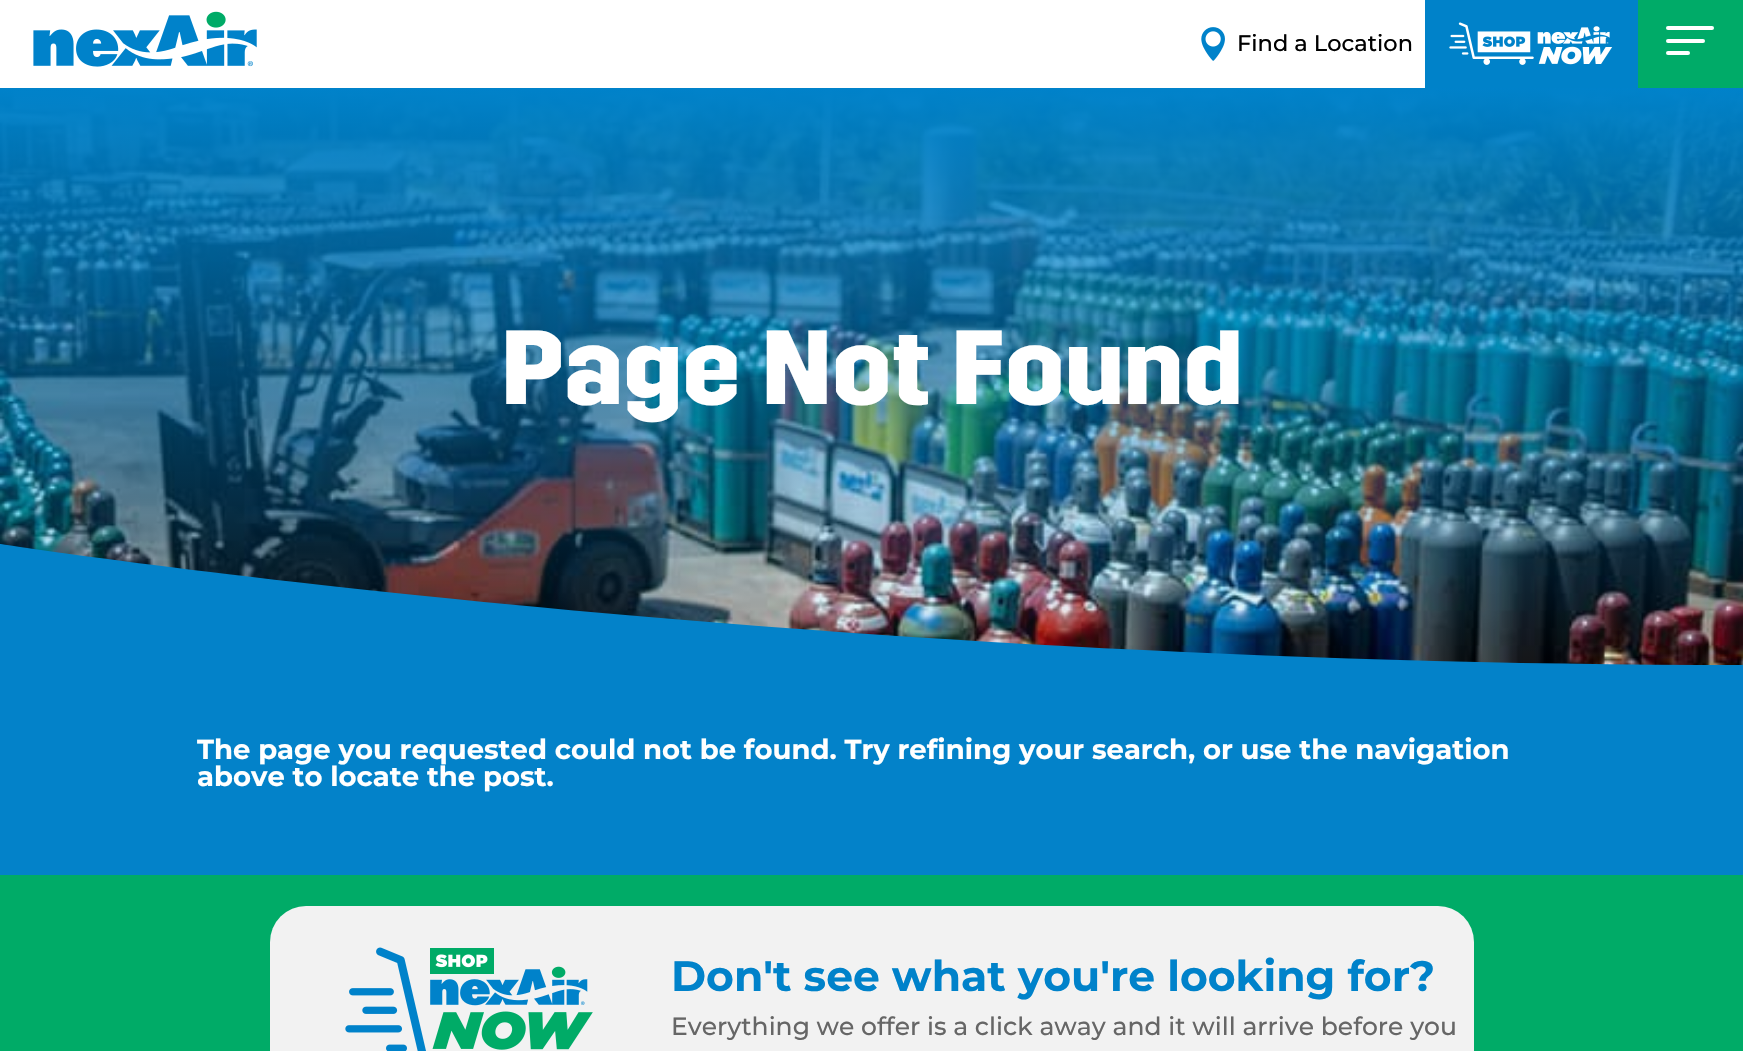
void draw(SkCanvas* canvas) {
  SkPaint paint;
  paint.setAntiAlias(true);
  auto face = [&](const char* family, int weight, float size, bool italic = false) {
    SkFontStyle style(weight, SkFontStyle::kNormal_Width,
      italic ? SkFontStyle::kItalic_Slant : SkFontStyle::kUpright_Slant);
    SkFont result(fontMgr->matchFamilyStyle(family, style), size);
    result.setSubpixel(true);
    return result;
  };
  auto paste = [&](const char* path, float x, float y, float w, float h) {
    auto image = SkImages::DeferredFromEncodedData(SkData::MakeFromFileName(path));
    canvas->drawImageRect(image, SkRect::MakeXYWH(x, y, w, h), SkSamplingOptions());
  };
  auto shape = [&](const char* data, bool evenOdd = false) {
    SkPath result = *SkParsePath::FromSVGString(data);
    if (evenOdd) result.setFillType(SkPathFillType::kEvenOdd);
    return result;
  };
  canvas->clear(0xffffffff);
  paste("img/1.png", 33, 11, 224, 56);
  paste("img/2.png", 1201, 27, 24, 34);
  paint.setColor(0xff0082c9);
  canvas->drawRect(SkRect::MakeXYWH(1425, 0, 213, 88), paint);
  paste("img/3.png", 1449, 22, 164, 43);
  paint.setColor(0xff00ab68);
  canvas->drawRect(SkRect::MakeXYWH(1638, 0, 105, 88), paint);
  paint.setColor(0xffffffff);
  canvas->drawRoundRect(SkRect::MakeXYWH(1666, 26, 48, 4), 2, 2, paint);
  canvas->drawRoundRect(SkRect::MakeXYWH(1666, 39, 39, 4), 2, 2, paint);
  canvas->drawRoundRect(SkRect::MakeXYWH(1666, 51, 24, 4), 2, 2, paint);
  paste("img/4.png", 0, 88, 1743, 577);
  paint.setColor(0xff0382c9);
  canvas->drawPath(shape("M0 665H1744C781 665 0 544 0 544Z"), paint);
  canvas->drawRect(SkRect::MakeXYWH(0, 665, 1743, 210), paint);
  paint.setColor(0xff00ab67);
  canvas->drawRect(SkRect::MakeXYWH(0, 875, 1743, 176), paint);
  paint.setColor(0xfff2f2f2);
  canvas->drawRoundRect(SkRect::MakeXYWH(270, 906, 1204, 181), 36, 36, paint);
  paste("img/5.png", 345, 947, 248, 104);
  auto f0 = face("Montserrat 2", 100, 22.5f);
  paint.setColor(0xff000000);
  canvas->drawString("Find a Location", 1237, 51, f0, paint);
  auto f1 = face("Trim", 700, 105);
  paint.setColor(0xffffffff);
  canvas->drawString("Page Not Found", 501, 404, f1, paint);
  auto f2 = face("Montserrat", 100, 27.5f);
  canvas->drawString("The page you requested could not be found. Try refining your search, or use the navigation", 197, 759, f2, paint);
  canvas->drawString("above to locate the post.", 197, 786, f2, paint);
  auto f3 = face("Montserrat", 100, 42.5f);
  paint.setColor(0xff0082ca);
  canvas->drawString("Don't see what you're looking for?", 671, 991, f3, paint);
  auto f4 = face("Montserrat 2", 100, 25);
  paint.setColor(0xff666666);
  canvas->drawString("Everything we offer is a click away and it will arrive before you", 671, 1035, f4, paint);
}
